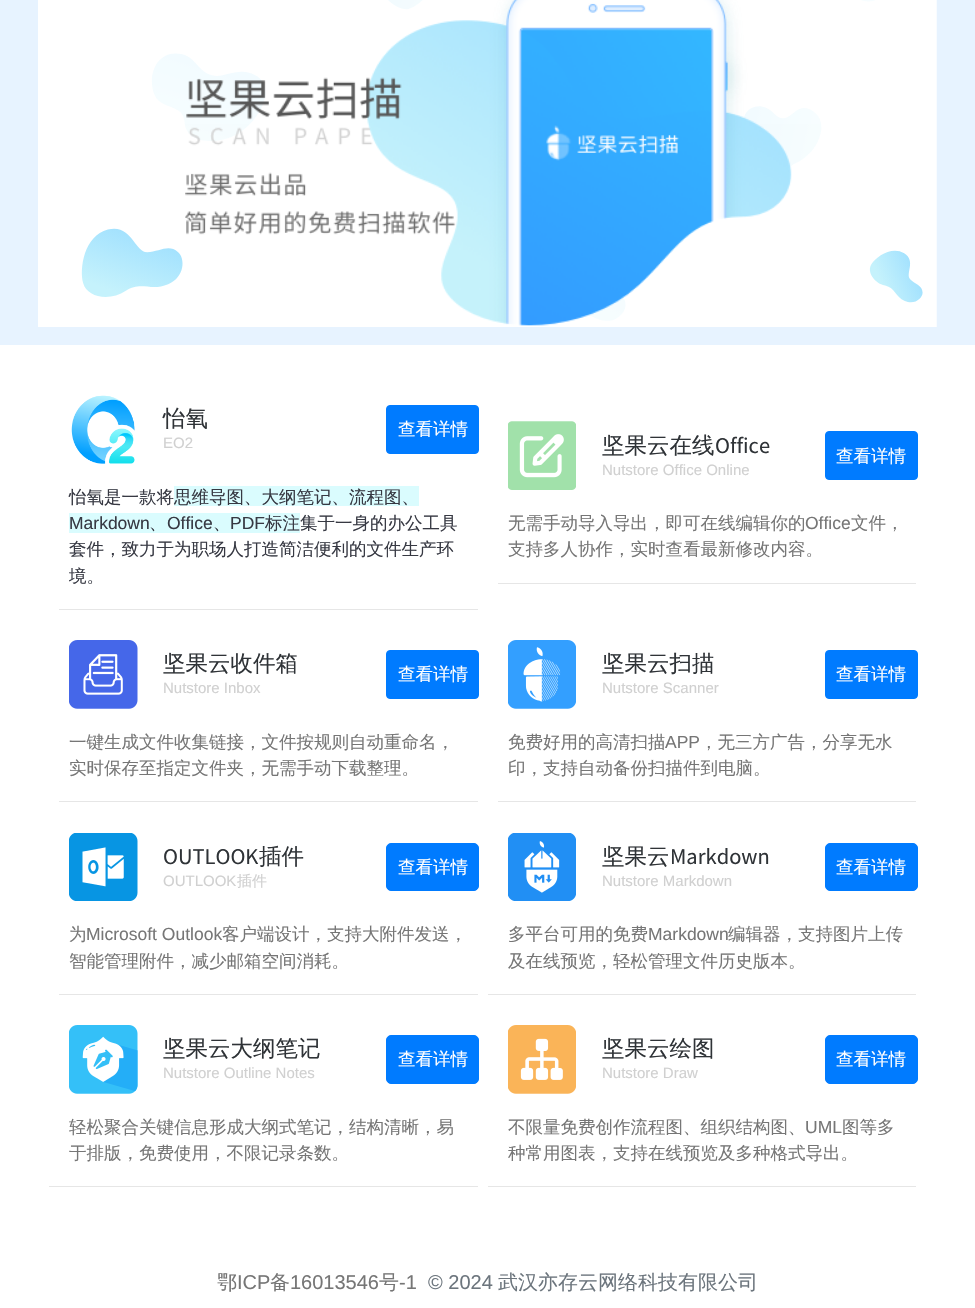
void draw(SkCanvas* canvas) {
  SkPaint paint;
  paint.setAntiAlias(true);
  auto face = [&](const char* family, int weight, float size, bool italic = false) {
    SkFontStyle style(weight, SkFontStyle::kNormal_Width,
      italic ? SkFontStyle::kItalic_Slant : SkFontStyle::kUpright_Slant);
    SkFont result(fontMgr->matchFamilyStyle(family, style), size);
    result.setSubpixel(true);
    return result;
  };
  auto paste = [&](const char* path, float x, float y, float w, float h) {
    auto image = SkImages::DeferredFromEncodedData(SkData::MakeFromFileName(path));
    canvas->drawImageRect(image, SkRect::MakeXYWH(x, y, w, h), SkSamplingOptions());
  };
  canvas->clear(0xffffffff);
  paint.setColor(0xffe7f3ff);
  canvas->drawRect(SkRect::MakeXYWH(0, 0, 975, 345), paint);
  paste("img/1.png", 38, 0, 899, 327);
  paste("img/2.png", 185, 0, 607, 326);
  paste("img/3.png", 71, 395, 64, 69);
  paint.setColor(0xff007bff);
  canvas->drawRoundRect(SkRect::MakeXYWH(386.5f, 405.5f, 92, 48), 3.5f, 3.5f, paint);
  paint.setStroke(true);
  paint.setStrokeWidth(1);
  canvas->drawRoundRect(SkRect::MakeXYWH(386.5f, 405.5f, 92, 48), 3.5f, 3.5f, paint);
  paint.setStroke(false);
  {
    const struct { float x, y, w, h; SkColor color; } items[] = {
      {174, 486, 245, 20, 0xffdafcfe},
      {69, 513, 231, 20, 0xffdafcfe},
      {59, 609, 419, 1, 0xffe6e6e6},
    };
    for (auto [x, y, w, h, color] : items) {
      paint.setColor(color);
      canvas->drawRect(SkRect::MakeXYWH(x, y, w, h), paint);
    }
  }
  paste("img/4.png", 508, 421, 68, 69);
  paint.setColor(0xff007bff);
  canvas->drawRoundRect(SkRect::MakeXYWH(825.5f, 431.5f, 92, 48), 3.5f, 3.5f, paint);
  paint.setStroke(true);
  canvas->drawRoundRect(SkRect::MakeXYWH(825.5f, 431.5f, 92, 48), 3.5f, 3.5f, paint);
  paint.setStroke(false);
  paint.setColor(0xffe6e6e6);
  canvas->drawRect(SkRect::MakeXYWH(498, 583, 418, 1), paint);
  paste("img/5.png", 69, 640, 69, 69);
  paint.setColor(0xff007bff);
  canvas->drawRoundRect(SkRect::MakeXYWH(386.5f, 650.5f, 92, 48), 3.5f, 3.5f, paint);
  paint.setStroke(true);
  canvas->drawRoundRect(SkRect::MakeXYWH(386.5f, 650.5f, 92, 48), 3.5f, 3.5f, paint);
  paint.setStroke(false);
  paint.setColor(0xffe6e6e6);
  canvas->drawRect(SkRect::MakeXYWH(59, 801, 419, 1), paint);
  paste("img/6.png", 508, 640, 68, 69);
  paint.setColor(0xff007bff);
  canvas->drawRoundRect(SkRect::MakeXYWH(825.5f, 650.5f, 92, 48), 3.5f, 3.5f, paint);
  paint.setStroke(true);
  canvas->drawRoundRect(SkRect::MakeXYWH(825.5f, 650.5f, 92, 48), 3.5f, 3.5f, paint);
  paint.setStroke(false);
  paint.setColor(0xffe6e6e6);
  canvas->drawRect(SkRect::MakeXYWH(498, 801, 418, 1), paint);
  paste("img/7.png", 69, 833, 69, 68);
  paint.setColor(0xff007bff);
  canvas->drawRoundRect(SkRect::MakeXYWH(386.5f, 843.5f, 92, 47), 4.5f, 4.5f, paint);
  paint.setStroke(true);
  canvas->drawRoundRect(SkRect::MakeXYWH(386.5f, 843.5f, 92, 47), 4.5f, 4.5f, paint);
  paint.setStroke(false);
  paint.setColor(0xffe6e6e6);
  canvas->drawRect(SkRect::MakeXYWH(59, 994, 419, 1), paint);
  paste("img/8.png", 508, 833, 68, 68);
  paint.setColor(0xff007bff);
  canvas->drawRoundRect(SkRect::MakeXYWH(825.5f, 843.5f, 92, 47), 4.5f, 4.5f, paint);
  paint.setStroke(true);
  canvas->drawRoundRect(SkRect::MakeXYWH(825.5f, 843.5f, 92, 47), 4.5f, 4.5f, paint);
  paint.setStroke(false);
  paint.setColor(0xffe6e6e6);
  canvas->drawRect(SkRect::MakeXYWH(488, 994, 428, 1), paint);
  paste("img/9.png", 69, 1025, 69, 69);
  paint.setColor(0xff007bff);
  canvas->drawRoundRect(SkRect::MakeXYWH(386.5f, 1035.5f, 92, 48), 4.5f, 4.5f, paint);
  paint.setStroke(true);
  canvas->drawRoundRect(SkRect::MakeXYWH(386.5f, 1035.5f, 92, 48), 4.5f, 4.5f, paint);
  paint.setStroke(false);
  paint.setColor(0xffe6e6e6);
  canvas->drawRect(SkRect::MakeXYWH(49, 1186, 429, 1), paint);
  paste("img/10.png", 508, 1025, 68, 69);
  paint.setColor(0xff007bff);
  canvas->drawRoundRect(SkRect::MakeXYWH(825.5f, 1035.5f, 92, 48), 4.5f, 4.5f, paint);
  paint.setStroke(true);
  canvas->drawRoundRect(SkRect::MakeXYWH(825.5f, 1035.5f, 92, 48), 4.5f, 4.5f, paint);
  paint.setStroke(false);
  paint.setColor(0xffe6e6e6);
  canvas->drawRect(SkRect::MakeXYWH(488, 1186, 428, 1), paint);
  auto f0 = face("WenQuanYi Zen Hei", 500, 22.5f);
  paint.setColor(0xff2f3337);
  canvas->drawString("怡氧", 163, 426, f0, paint);
  auto f1 = face("Liberation Sans", 400, 15);
  paint.setColor(0xffd0d0d0);
  canvas->drawString("EO2", 163, 448, f1, paint);
  auto f2 = face("WenQuanYi Zen Hei", 500, 17.5f);
  paint.setColor(0xffffffff);
  canvas->drawString("查看详情", 398, 435, f2, paint);
  paint.setColor(0xff373943);
  canvas->drawString("怡氧是一款将", 69, 503, f2, paint);
  canvas->drawString("思维导图、大纲笔记、流程图、", 174, 503, f2, paint);
  auto f3 = face("Liberation Sans", 400, 17.5f);
  {
    const struct { const char* s; float x, y; } items[] = {
      {"Markdown", 69, 529},
      {"Office", 167, 529},
      {"PDF", 230, 529},
    };
    for (auto [s, x, y] : items) {
      canvas->drawString(s, x, y, f3, paint);
    }
  }
  {
    const struct { const char* s; float x, y; } items[] = {
      {"标注集于一身的办公工具", 265, 529},
      {"、", 149, 529},
      {"、", 213, 529},
      {"套件，致力于为职场人打造简洁便利的文件生产环", 69, 555},
      {"境。", 69, 582},
    };
    for (auto [s, x, y] : items) {
      canvas->drawString(s, x, y, f2, paint);
    }
  }
  paint.setColor(0xff2f3337);
  canvas->drawString("坚果云在线", 602, 453, f0, paint);
  auto f4 = face("Source Sans Pro", 400, 22.5f);
  canvas->drawString("Office", 715, 453, f4, paint);
  paint.setColor(0xffd0d0d0);
  canvas->drawString("Nutstore Office Online", 602, 475, f1, paint);
  paint.setColor(0xffffffff);
  canvas->drawString("查看详情", 836, 462, f2, paint);
  paint.setColor(0xff767676);
  canvas->drawString("无需手动导入导出，即可在线编辑你的", 508, 529, f2, paint);
  canvas->drawString("Office", 805, 529, f3, paint);
  canvas->drawString("文件，", 851, 529, f2, paint);
  canvas->drawString("支持多人协作，实时查看最新修改内容。", 508, 555, f2, paint);
  paint.setColor(0xff2f3337);
  canvas->drawString("坚果云收件箱", 163, 671, f0, paint);
  paint.setColor(0xffd0d0d0);
  canvas->drawString("Nutstore Inbox", 163, 693, f1, paint);
  paint.setColor(0xffffffff);
  canvas->drawString("查看详情", 398, 680, f2, paint);
  paint.setColor(0xff767676);
  canvas->drawString("一键生成文件收集链接，文件按规则自动重命名，", 69, 748, f2, paint);
  canvas->drawString("实时保存至指定文件夹，无需手动下载整理。", 69, 774, f2, paint);
  paint.setColor(0xff2f3337);
  canvas->drawString("坚果云扫描", 602, 671, f0, paint);
  paint.setColor(0xffd0d0d0);
  canvas->drawString("Nutstore Scanner", 602, 693, f1, paint);
  paint.setColor(0xffffffff);
  canvas->drawString("查看详情", 836, 680, f2, paint);
  paint.setColor(0xff767676);
  canvas->drawString("免费好用的高清扫描", 508, 748, f2, paint);
  canvas->drawString("APP", 665, 748, f3, paint);
  canvas->drawString("，无三方广告，分享无水", 700, 748, f2, paint);
  canvas->drawString("印，支持自动备份扫描件到电脑。", 508, 774, f2, paint);
  paint.setColor(0xff2f3337);
  canvas->drawString("OUTLOOK", 163, 864, f4, paint);
  canvas->drawString("插件", 259, 864, f0, paint);
  paint.setColor(0xffd0d0d0);
  canvas->drawString("OUTLOOK", 163, 886, f1, paint);
  auto f5 = face("WenQuanYi Zen Hei", 500, 15);
  canvas->drawString("插件", 237, 886, f5, paint);
  paint.setColor(0xffffffff);
  canvas->drawString("查看详情", 398, 873, f2, paint);
  paint.setColor(0xff767676);
  canvas->drawString("为", 69, 940, f2, paint);
  canvas->drawString("Microsoft Outlook", 86, 940, f3, paint);
  canvas->drawString("客户端设计，支持大附件发送，", 222, 940, f2, paint);
  canvas->drawString("智能管理附件，减少邮箱空间消耗。", 69, 967, f2, paint);
  paint.setColor(0xff2f3337);
  canvas->drawString("坚果云", 602, 864, f0, paint);
  canvas->drawString("Markdown", 670, 864, f4, paint);
  paint.setColor(0xffd0d0d0);
  canvas->drawString("Nutstore Markdown", 602, 886, f1, paint);
  paint.setColor(0xffffffff);
  canvas->drawString("查看详情", 836, 873, f2, paint);
  paint.setColor(0xff767676);
  canvas->drawString("多平台可用的免费", 508, 940, f2, paint);
  canvas->drawString("Markdown", 648, 940, f3, paint);
  canvas->drawString("编辑器，支持图片上传", 728, 940, f2, paint);
  canvas->drawString("及在线预览，轻松管理文件历史版本。", 508, 967, f2, paint);
  paint.setColor(0xff2f3337);
  canvas->drawString("坚果云大纲笔记", 163, 1056, f0, paint);
  paint.setColor(0xffd0d0d0);
  canvas->drawString("Nutstore Outline Notes", 163, 1078, f1, paint);
  paint.setColor(0xffffffff);
  canvas->drawString("查看详情", 398, 1065, f2, paint);
  paint.setColor(0xff767676);
  canvas->drawString("轻松聚合关键信息形成大纲式笔记，结构清晰，易", 69, 1133, f2, paint);
  canvas->drawString("于排版，免费使用，不限记录条数。", 69, 1159, f2, paint);
  paint.setColor(0xff2f3337);
  canvas->drawString("坚果云绘图", 602, 1056, f0, paint);
  paint.setColor(0xffd0d0d0);
  canvas->drawString("Nutstore Draw", 602, 1078, f1, paint);
  paint.setColor(0xffffffff);
  canvas->drawString("查看详情", 836, 1065, f2, paint);
  paint.setColor(0xff767676);
  canvas->drawString("不限量免费创作流程图、组织结构图、", 508, 1133, f2, paint);
  canvas->drawString("UML", 805, 1133, f3, paint);
  canvas->drawString("图等多", 842, 1133, f2, paint);
  canvas->drawString("种常用图表，支持在线预览及多种格式导出。", 508, 1159, f2, paint);
  auto f6 = face("WenQuanYi Zen Hei", 500, 20);
  canvas->drawString("鄂", 217, 1289, f6, paint);
  auto f7 = face("Liberation Sans", 400, 20);
  canvas->drawString("ICP", 237, 1289, f7, paint);
  canvas->drawString("备", 270, 1289, f6, paint);
  canvas->drawString("16013546", 290, 1289, f7, paint);
  canvas->drawString("号", 379, 1289, f6, paint);
  canvas->drawString("-1", 399, 1289, f7, paint);
  paint.setColor(0xff6c757d);
  canvas->drawString("© 2024", 428, 1289, f7, paint);
  canvas->drawString("武汉亦存云网络科技有限公司", 498, 1289, f6, paint);
}
